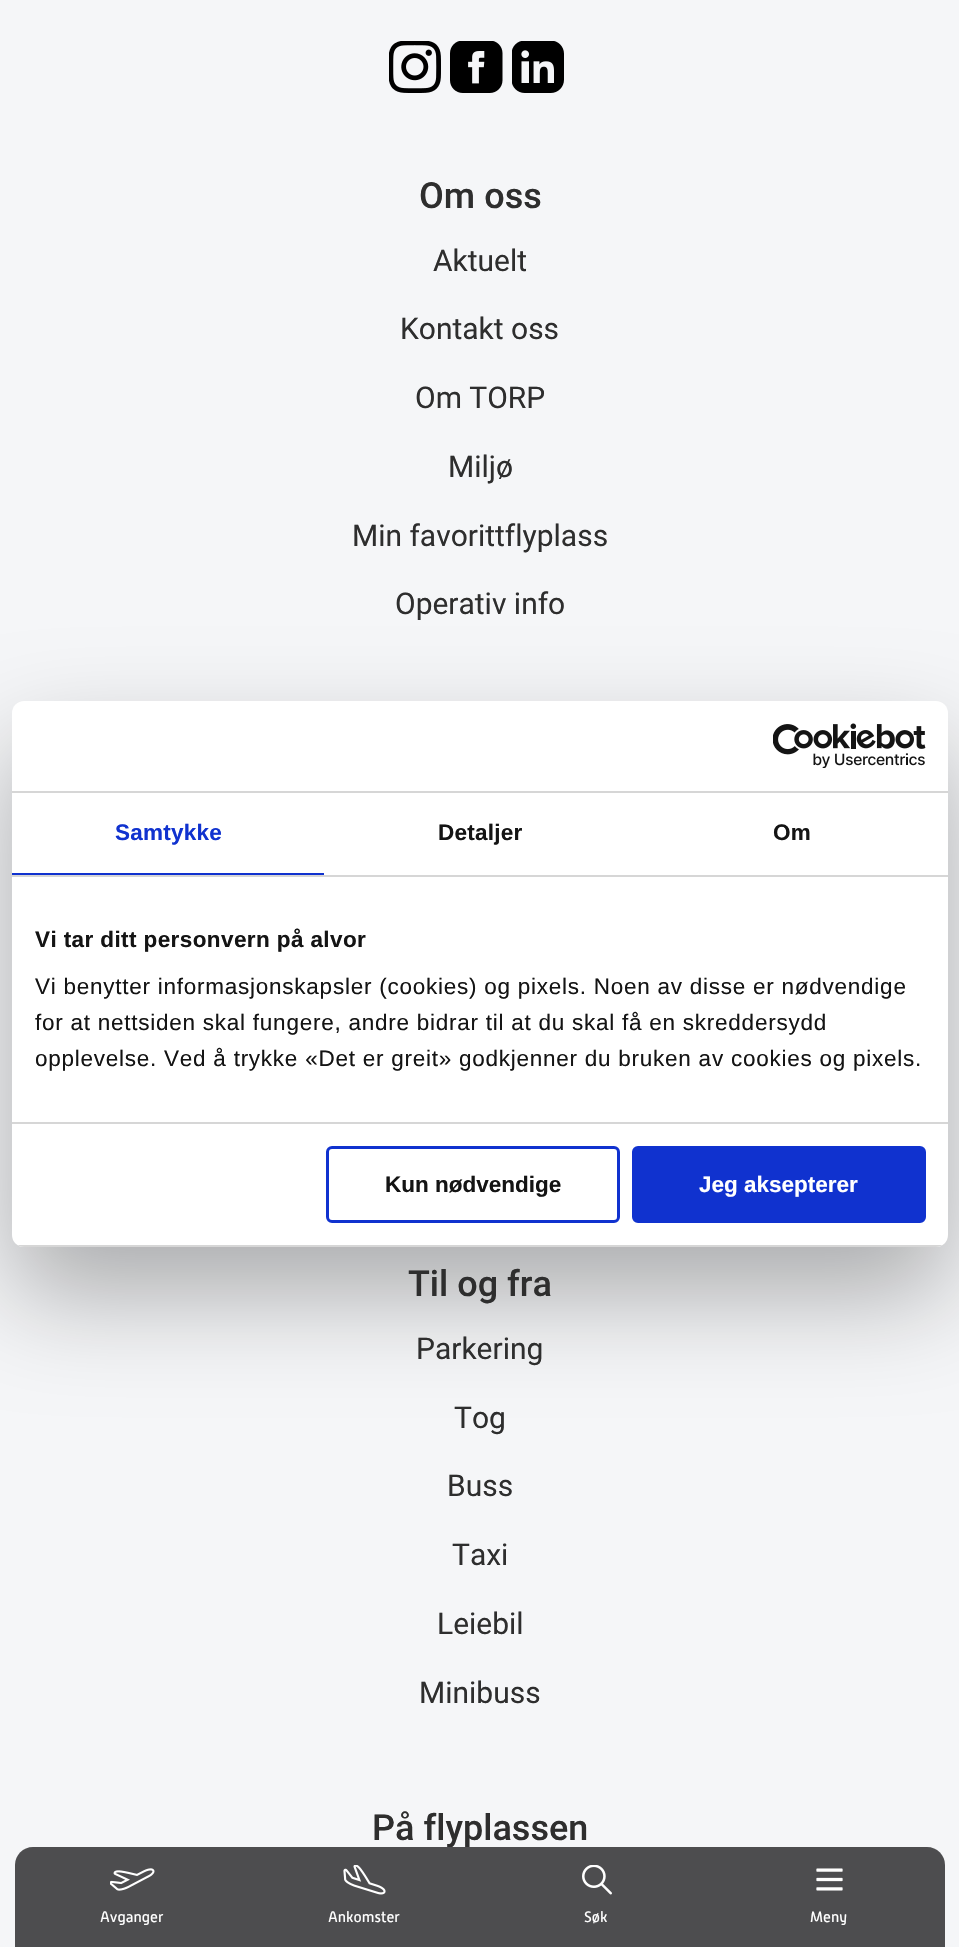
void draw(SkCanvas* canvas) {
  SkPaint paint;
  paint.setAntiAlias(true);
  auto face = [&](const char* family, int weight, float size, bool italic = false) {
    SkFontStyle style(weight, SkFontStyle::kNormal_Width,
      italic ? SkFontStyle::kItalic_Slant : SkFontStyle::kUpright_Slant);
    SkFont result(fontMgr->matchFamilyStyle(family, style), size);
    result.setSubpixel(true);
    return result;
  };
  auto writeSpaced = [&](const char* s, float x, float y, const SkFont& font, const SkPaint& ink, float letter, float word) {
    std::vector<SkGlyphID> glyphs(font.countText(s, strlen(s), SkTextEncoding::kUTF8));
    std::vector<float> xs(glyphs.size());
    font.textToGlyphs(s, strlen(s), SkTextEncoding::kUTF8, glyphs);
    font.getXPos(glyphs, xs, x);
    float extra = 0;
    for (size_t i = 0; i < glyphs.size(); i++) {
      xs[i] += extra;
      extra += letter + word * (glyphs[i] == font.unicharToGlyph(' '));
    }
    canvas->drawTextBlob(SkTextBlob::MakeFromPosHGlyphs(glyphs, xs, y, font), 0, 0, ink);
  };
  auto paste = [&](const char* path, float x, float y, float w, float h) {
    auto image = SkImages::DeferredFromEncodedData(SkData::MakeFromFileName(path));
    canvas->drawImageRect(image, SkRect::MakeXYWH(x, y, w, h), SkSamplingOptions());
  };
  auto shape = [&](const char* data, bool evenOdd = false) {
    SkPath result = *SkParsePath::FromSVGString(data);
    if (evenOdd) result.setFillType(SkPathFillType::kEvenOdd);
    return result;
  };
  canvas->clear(0xfff5f6f8);
  paste("img/1.png", 389, 41, 52, 52);
  paste("img/2.png", 450, 41, 53, 52);
  paste("img/3.png", 512, 41, 52, 52);
  paint.setColor(0x4d000000);
  paint.setMaskFilter(SkMaskFilter::MakeBlur(kNormal_SkBlurStyle, 51));
  canvas->drawRoundRect(SkRect::MakeXYWH(12, 749, 936, 546), 12, 12, paint);
  paint.setMaskFilter(nullptr);
  paint.setColor(0xffffffff);
  canvas->drawRoundRect(SkRect::MakeXYWH(12, 701, 936, 546), 12, 12, paint);
  paint.setColor(0xffd6d6d6);
  canvas->drawRect(SkRect::MakeXYWH(12, 791, 936, 2), paint);
  paste("img/8.png", 773, 723, 153, 45);
  {
    const struct { float x, y, w, h; SkColor color; } items[] = {
      {12, 875, 936, 2, 0xffd6d6d6},
      {12, 873, 312, 2, 0xff1032cf},
      {12, 1122, 936, 2, 0xffd6d6d6},
    };
    for (auto [x, y, w, h, color] : items) {
      paint.setColor(color);
      canvas->drawRect(SkRect::MakeXYWH(x, y, w, h), paint);
    }
  }
  canvas->save();
  canvas->clipPath(shape("M24 701H936C942.5 701 948 706.5 948 713V1235C948 1241.5 942.5 1247 936 1247H24C17.5 1247 12 1241.5 12 1235V713C12 706.5 17.5 701 24 701Z"), true);
  canvas->drawRect(SkRect::MakeXYWH(12, 1245, 936, 2), paint);
  canvas->restore();
  paint.setStroke(true);
  paint.setStrokeWidth(3);
  paint.setColor(0xff1032cf);
  canvas->drawRoundRect(SkRect::MakeXYWH(327.5f, 1147.5f, 291, 74), 4.5f, 4.5f, paint);
  paint.setStroke(false);
  canvas->drawRoundRect(SkRect::MakeXYWH(633.5f, 1147.5f, 291, 74), 4.5f, 4.5f, paint);
  paint.setStroke(true);
  canvas->drawRoundRect(SkRect::MakeXYWH(633.5f, 1147.5f, 291, 74), 4.5f, 4.5f, paint);
  auto f0 = face("Roboto", 500, 36);
  paint.setStroke(false);
  paint.setColor(0xff2e2e2e);
  canvas->drawString("Om oss", 419, 208, f0, paint);
  auto f1 = face("Roboto", 400, 30);
  {
    const struct { const char* s; float x, y; } items[] = {
      {"Aktuelt", 433, 271},
      {"Kontakt oss", 400, 339},
      {"Om TORP", 415, 408},
      {"Miljø", 448, 477},
      {"Min favorittflyplass", 352, 546},
      {"Operativ info", 395, 614},
    };
    for (auto [s, x, y] : items) {
      canvas->drawString(s, x, y, f1, paint);
    }
  }
  canvas->drawString("Til og fra", 408, 1296, f0, paint);
  {
    const struct { const char* s; float x, y; } items[] = {
      {"Parkering", 416, 1359},
      {"Tog", 454, 1428},
      {"Buss", 447, 1496},
      {"Taxi", 452, 1565},
      {"Leiebil", 437, 1634},
      {"Minibuss", 419, 1703},
    };
    for (auto [s, x, y] : items) {
      canvas->drawString(s, x, y, f1, paint);
    }
  }
  canvas->drawString("På flyplassen", 372, 1840, f0, paint);
  paint.setColor(0xff4d4d4f);
  canvas->drawPath(shape("M33 1847H927C937 1847 945 1855 945 1865V1947H15V1865C15 1855 23 1847 33 1847Z"), paint);
  paste("img/4.png", 110, 1868, 45, 23);
  auto f2 = face("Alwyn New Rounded", 400, 15);
  paint.setColor(0xffffffff);
  canvas->drawString("Avganger", 100, 1922, f2, paint);
  paste("img/5.png", 343, 1865, 43, 30);
  canvas->drawString("Ankomster", 328, 1922, f2, paint);
  paste("img/6.png", 582, 1865, 30, 30);
  canvas->drawString("Søk", 584, 1922, f2, paint);
  paste("img/7.png", 816, 1868, 27, 23);
  canvas->drawString("Meny", 810, 1922, f2, paint);
  auto f3 = face("Liberation Sans", 700, 22.5f);
  paint.setColor(0xff1032cf);
  writeSpaced("Samtykke", 115, 840, f3, paint, 0.25f, 0);
  paint.setColor(0xff141414);
  writeSpaced("Detaljer", 438, 840, f3, paint, 0.25f, 0);
  writeSpaced("Om", 773, 840, f3, paint, 0.25f, 0);
  writeSpaced("Vi tar ditt personvern på alvor", 35, 947, f3, paint, 0.4f, 0);
  auto f4 = face("Liberation Sans", 400, 22.5f);
  {
    const struct { const char* s; float x, y; } items[] = {
      {"Vi benytter informasjonskapsler (cookies) og pixels. Noen av disse er nødvendige", 35, 994},
      {"for at nettsiden skal fungere, andre bidrar til at du skal få en skreddersydd", 35, 1030},
      {"opplevelse. Ved å trykke «Det er greit» godkjenner du bruken av cookies og pixels.", 35, 1066},
    };
    for (auto [s, x, y] : items) {
      writeSpaced(s, x, y, f4, paint, 0.75f, 0);
    }
  }
  canvas->drawString("Kun nødvendige", 385, 1192, f3, paint);
  paint.setColor(0xffffffff);
  canvas->drawString("Jeg aksepterer", 699, 1192, f3, paint);
}
